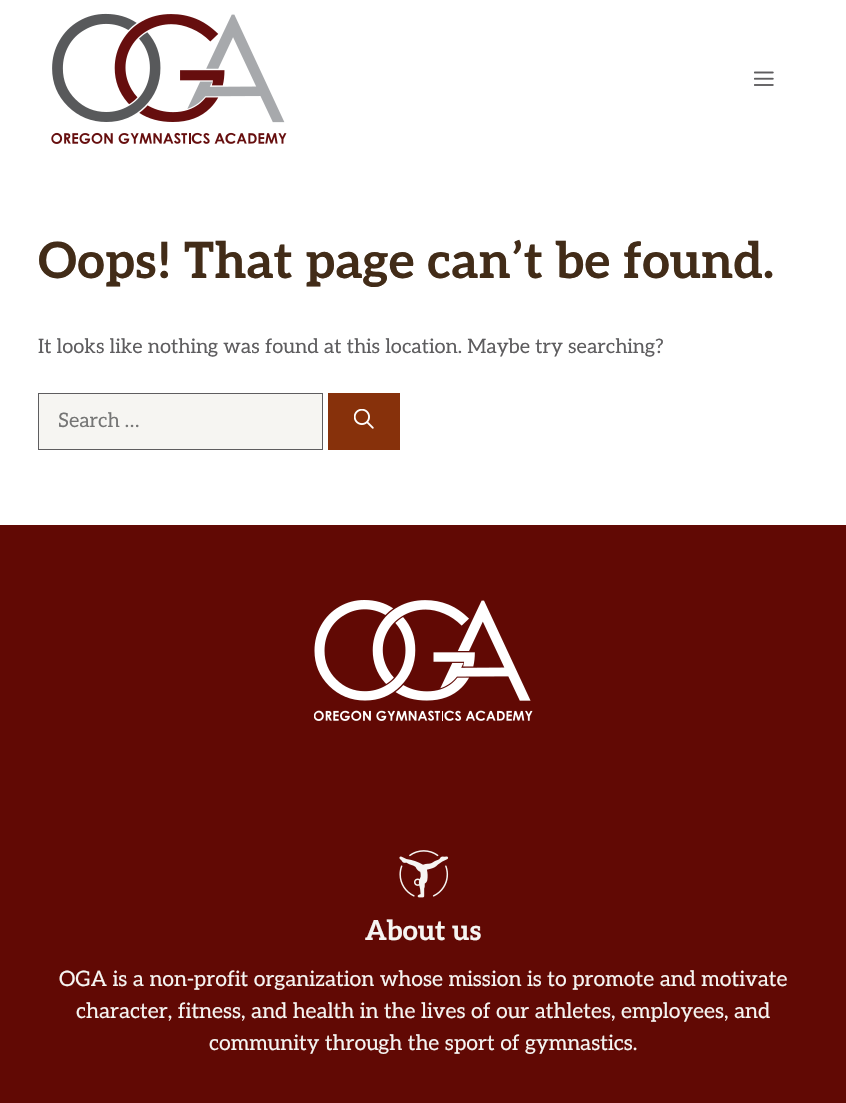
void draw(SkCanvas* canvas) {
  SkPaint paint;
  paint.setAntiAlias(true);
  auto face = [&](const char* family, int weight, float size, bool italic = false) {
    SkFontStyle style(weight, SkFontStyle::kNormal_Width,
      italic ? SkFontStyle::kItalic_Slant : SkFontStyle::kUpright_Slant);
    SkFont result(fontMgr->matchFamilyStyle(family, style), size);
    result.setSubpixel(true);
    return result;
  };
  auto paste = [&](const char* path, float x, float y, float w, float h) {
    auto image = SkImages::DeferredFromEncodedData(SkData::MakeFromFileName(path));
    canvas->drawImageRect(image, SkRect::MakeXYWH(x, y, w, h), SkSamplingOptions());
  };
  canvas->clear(0xffffffff);
  paste("img/1.png", 51, 13, 236, 131);
  paste("img/2.png", 754, 71, 20, 15);
  paint.setColor(0xfff6f5f2);
  canvas->drawRect(SkRect::MakeXYWH(38.5f, 393.5f, 284, 56), paint);
  paint.setStroke(true);
  paint.setStrokeWidth(1);
  paint.setColor(0xff5e5d5f);
  canvas->drawRect(SkRect::MakeXYWH(38.5f, 393.5f, 284, 56), paint);
  paint.setStroke(false);
  paint.setColor(0xff87310b);
  canvas->drawRect(SkRect::MakeXYWH(328, 393, 72, 57), paint);
  paste("img/3.png", 354, 409, 20, 20);
  paint.setColor(0xff610904);
  canvas->drawRect(SkRect::MakeXYWH(0, 525, 846, 578), paint);
  paste("img/4.png", 314, 600, 219, 121);
  paste("img/5.png", 399, 850, 50, 48);
  auto f0 = face("Aleo", 700, 50);
  paint.setColor(0xff422c18);
  canvas->drawString("Oops! That page can’t be found.", 38, 278, f0, paint);
  auto f1 = face("Aleo", 400, 20);
  paint.setColor(0xff5e5d5f);
  canvas->drawString("It looks like nothing was found at this location. Maybe try searching?", 38, 353, f1, paint);
  paint.setColor(0xff757575);
  canvas->drawString("Search …", 58, 427, f1, paint);
  auto f2 = face("Aleo", 700, 27.5f);
  paint.setColor(0xfff6f5f2);
  canvas->drawString("About us", 365, 940, f2, paint);
  auto f3 = face("Aleo", 400, 21.25f);
  {
    const struct { const char* s; float x, y; } items[] = {
      {"OGA is a non-profit organization whose mission is to promote and motivate", 59, 986},
      {"character, fitness, and health in the lives of our athletes, employees, and", 76, 1018},
      {"community through the sport of gymnastics.", 209, 1050},
    };
    for (auto [s, x, y] : items) {
      canvas->drawString(s, x, y, f3, paint);
    }
  }
}
